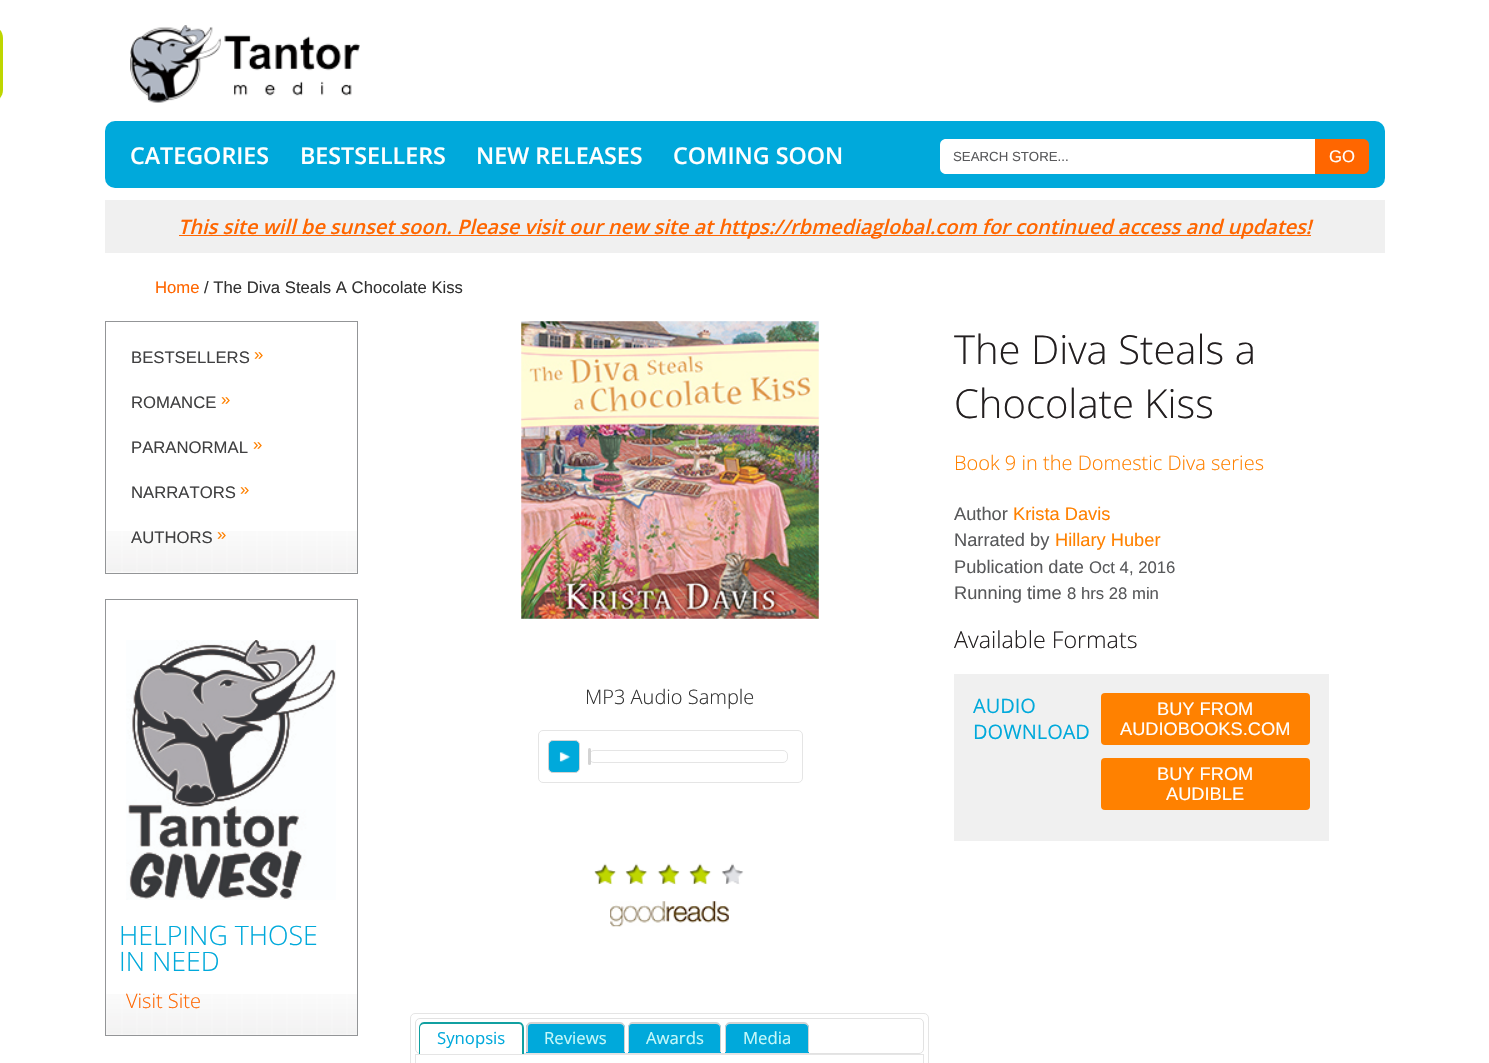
void draw(SkCanvas* canvas) {
  SkPaint paint;
  paint.setAntiAlias(true);
  auto face = [&](const char* family, int weight, float size, bool italic = false) {
    SkFontStyle style(weight, SkFontStyle::kNormal_Width,
      italic ? SkFontStyle::kItalic_Slant : SkFontStyle::kUpright_Slant);
    SkFont result(fontMgr->matchFamilyStyle(family, style), size);
    result.setSubpixel(true);
    return result;
  };
  auto paste = [&](const char* path, float x, float y, float w, float h) {
    auto image = SkImages::DeferredFromEncodedData(SkData::MakeFromFileName(path));
    canvas->drawImageRect(image, SkRect::MakeXYWH(x, y, w, h), SkSamplingOptions());
  };
  auto shape = [&](const char* data, bool evenOdd = false) {
    SkPath result = *SkParsePath::FromSVGString(data);
    if (evenOdd) result.setFillType(SkPathFillType::kEvenOdd);
    return result;
  };
  canvas->clear(0xffffffff);
  paint.setColor(0xffbed600);
  canvas->drawPath(shape("M-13 25H-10C-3 25 3 31 3 38V90C3 97-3 103-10 103H-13Z"), paint);
  paste("img/1.png", 130, 25, 230, 78);
  paint.setColor(0xff00a9db);
  canvas->drawRoundRect(SkRect::MakeXYWH(105, 121, 1280, 67), 10, 10, paint);
  paint.setColor(0xffffffff);
  canvas->drawPath(shape("M946 139H1315V174H946C942.5 174 940 171.5 940 168V145C940 141.5 942.5 139 946 139Z"), paint);
  paint.setColor(0xffff6600);
  canvas->drawPath(shape("M1315 139H1363C1366.5 139 1369 141.5 1369 145V168C1369 171.5 1366.5 174 1363 174H1315Z"), paint);
  paint.setColor(0xfff0f0f0);
  canvas->drawRect(SkRect::MakeXYWH(105, 200, 1280, 53), paint);
  paint.setColor(0xffff6600);
  canvas->drawRect(SkRect::MakeXYWH(179, 235, 1132, 1), paint);
  paste("img/2.png", 106, 531, 251, 42);
  paint.setStroke(true);
  paint.setStrokeWidth(1);
  paint.setColor(0xff939597);
  canvas->drawRect(SkRect::MakeXYWH(105.5f, 321.5f, 252, 252), paint);
  paste("img/3.png", 106, 994, 251, 41);
  canvas->drawRect(SkRect::MakeXYWH(105.5f, 599.5f, 252, 436), paint);
  paste("img/4.png", 126, 640, 210, 260);
  paint.setStroke(false);
  paint.setColor(0xfff0f0f0);
  canvas->drawRect(SkRect::MakeXYWH(954, 674, 375, 167), paint);
  paint.setColor(0xffff8100);
  canvas->drawRoundRect(SkRect::MakeXYWH(1101, 693, 209, 52), 4, 4, paint);
  canvas->drawRoundRect(SkRect::MakeXYWH(1101, 758, 209, 52), 4, 4, paint);
  paste("img/5.png", 521, 321, 298, 298);
  paint.setStroke(true);
  paint.setColor(0xffe5e5e5);
  canvas->drawRoundRect(SkRect::MakeXYWH(538.5f, 730.5f, 264, 52), 4.5f, 4.5f, paint);
  paint.setStroke(false);
  paint.setColor(0xff00a9db);
  canvas->drawRoundRect(SkRect::MakeXYWH(548.5f, 740.5f, 31, 32), 4.5f, 4.5f, paint);
  paint.setStroke(true);
  paint.setColor(0xffd3d3d3);
  canvas->drawRoundRect(SkRect::MakeXYWH(548.5f, 740.5f, 31, 32), 4.5f, 4.5f, paint);
  paste("img/6.png", 559, 752, 12, 10);
  paint.setColor(0xffe5e5e5);
  canvas->drawRoundRect(SkRect::MakeXYWH(589.5f, 750.5f, 198, 12), 4.5f, 4.5f, paint);
  paint.setStroke(false);
  paint.setColor(0xffd3d3d3);
  canvas->drawRoundRect(SkRect::MakeXYWH(588, 748, 3, 17), 1.5f, 1.5f, paint);
  paint.setColor(0xffbed600);
  canvas->drawRect(SkRect::MakeXYWH(594, 863, 118, 22), paint);
  paint.setColor(0xffe1e2e6);
  canvas->drawRect(SkRect::MakeXYWH(721, 863, 23, 22), paint);
  paste("img/7.png", 594, 863, 152, 23);
  paste("img/8.png", 610, 901, 119, 26);
  paint.setStroke(true);
  paint.setColor(0xffe5e5e5);
  canvas->drawRoundRect(SkRect::MakeXYWH(410.5f, 1013.5f, 518, 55), 4.5f, 4.5f, paint);
  paint.setColor(0xffe2e2e2);
  canvas->drawRoundRect(SkRect::MakeXYWH(415.5f, 1018.5f, 508, 35), 4.5f, 4.5f, paint);
  paint.setStroke(false);
  paint.setColor(0xffffffff);
  canvas->drawPath(shape("M424 1023H519C522 1023 524 1025 524 1028V1054H419V1028C419 1025 421 1023 424 1023Z"), paint);
  paint.setColor(0xff11a0a1);
  canvas->drawPath(shape("M424 1022H519C522 1022 524 1025 524 1028V1054H419V1028C419 1025 421 1022 424 1022ZM424 1024H519C521 1024 522 1025 522 1028V1054H420V1028C420 1025 422 1024 424 1024Z", true), paint);
  paint.setColor(0xff00a9db);
  canvas->drawPath(shape("M531 1023H620C623 1023 625 1025 625 1028V1053H526V1028C526 1025 528 1023 531 1023Z"), paint);
  paint.setColor(0xffd3d3d3);
  canvas->drawPath(shape("M531 1022H620C623 1022 625 1025 625 1028V1052H526V1028C526 1025 528 1022 531 1022ZM531 1024H620C622 1024 624 1025 624 1028V1052H528V1028C528 1025 529 1024 531 1024Z", true), paint);
  paint.setColor(0xff00a9db);
  canvas->drawPath(shape("M633 1023H716C719 1023 721 1025 721 1028V1053H628V1028C628 1025 630 1023 633 1023Z"), paint);
  paint.setColor(0xffd3d3d3);
  canvas->drawPath(shape("M632 1022H716C719 1022 721 1025 721 1028V1052H628V1028C628 1025 630 1022 632 1022ZM632 1024H716C718 1024 720 1025 720 1028V1052H629V1028C629 1025 630 1024 632 1024Z", true), paint);
  paint.setColor(0xff00a9db);
  canvas->drawPath(shape("M730 1023H804C807 1023 809 1025 809 1028V1053H725V1028C725 1025 727 1023 730 1023Z"), paint);
  paint.setColor(0xffd3d3d3);
  canvas->drawPath(shape("M730 1022H804C807 1022 809 1025 809 1028V1052H725V1028C725 1025 727 1022 730 1022ZM730 1024H804C806 1024 808 1025 808 1028V1052H726V1028C726 1025 728 1024 730 1024Z", true), paint);
  paint.setStroke(true);
  paint.setColor(0xffe5e5e5);
  canvas->drawRect(SkRect::MakeXYWH(415.5f, 1054.5f, 508, 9), paint);
  auto f0 = face("Open Sans", 600, 23.25f);
  paint.setStroke(false);
  paint.setColor(0xffffffff);
  {
    const struct { const char* s; float x, y; } items[] = {
      {"CATEGORIES", 130, 164},
      {"BESTSELLERS", 300, 164},
      {"NEW RELEASES", 476, 164},
      {"COMING SOON", 673, 164},
    };
    for (auto [s, x, y] : items) {
      canvas->drawString(s, x, y, f0, paint);
    }
  }
  auto f1 = face("Liberation Sans", 400, 13.25f);
  paint.setColor(0xff58595b);
  canvas->drawString("SEARCH STORE...", 953, 161, f1, paint);
  auto f2 = face("Liberation Sans", 400, 16.7f);
  paint.setColor(0xffffffff);
  canvas->drawString("GO", 1329, 162, f2, paint);
  auto f3 = face("Open Sans", 600, 20, true);
  paint.setColor(0xffff6600);
  canvas->drawString("This site will be sunset soon. Please visit our new site at https://rbmediaglobal.com for continued access and updates!", 178, 234, f3, paint);
  canvas->drawString("Home", 155, 293, f2, paint);
  paint.setColor(0xff323232);
  canvas->drawString("/ The Diva Steals A Chocolate Kiss", 204, 293, f2, paint);
  paint.setColor(0xff404041);
  canvas->drawString("BESTSELLERS", 131, 363, f2, paint);
  paint.setColor(0xffff8100);
  canvas->drawString("»", 254, 360, f2, paint);
  paint.setColor(0xff404041);
  canvas->drawString("ROMANCE", 131, 408, f2, paint);
  paint.setColor(0xffff8100);
  canvas->drawString("»", 221, 405, f2, paint);
  paint.setColor(0xff404041);
  canvas->drawString("PARANORMAL", 131, 453, f2, paint);
  paint.setColor(0xffff8100);
  canvas->drawString("»", 253, 450, f2, paint);
  paint.setColor(0xff404041);
  canvas->drawString("NARRATORS", 131, 498, f2, paint);
  paint.setColor(0xffff8100);
  canvas->drawString("»", 240, 495, f2, paint);
  paint.setColor(0xff404041);
  canvas->drawString("AUTHORS", 131, 543, f2, paint);
  paint.setColor(0xffff8100);
  canvas->drawString("»", 217, 540, f2, paint);
  auto f4 = face("Open Sans", 300, 26.75f);
  paint.setColor(0xff00a9db);
  canvas->drawString("HELPING THOSE", 119, 945, f4, paint);
  canvas->drawString("IN NEED", 119, 971, f4, paint);
  auto f5 = face("Open Sans", 300, 20);
  paint.setColor(0xffff6600);
  canvas->drawString("Visit Site", 126, 1008, f5, paint);
  auto f6 = face("Open Sans", 300, 40);
  paint.setColor(0xff231f20);
  canvas->drawString("The Diva Steals a", 954, 364, f6, paint);
  canvas->drawString("Chocolate Kiss", 954, 418, f6, paint);
  paint.setColor(0xffff8100);
  canvas->drawString("Book 9 in the Domestic Diva series", 954, 470, f5, paint);
  auto f7 = face("Liberation Sans", 400, 18.25f);
  paint.setColor(0xff58595b);
  canvas->drawString("Author", 954, 520, f7, paint);
  paint.setColor(0xffff8100);
  canvas->drawString("Krista Davis", 1013, 520, f7, paint);
  paint.setColor(0xff58595b);
  canvas->drawString("Narrated by", 954, 546, f7, paint);
  paint.setColor(0xffff8100);
  canvas->drawString("Hillary Huber", 1055, 546, f7, paint);
  paint.setColor(0xff58595b);
  canvas->drawString("Publication date", 954, 573, f7, paint);
  canvas->drawString("Oct 4, 2016", 1089, 573, f2, paint);
  canvas->drawString("Running time", 954, 599, f7, paint);
  canvas->drawString("8 hrs 28 min", 1067, 599, f2, paint);
  auto f8 = face("Open Sans", 300, 23.25f);
  paint.setColor(0xff231f20);
  canvas->drawString("Available Formats", 954, 648, f8, paint);
  auto f9 = face("Open Sans", 400, 20);
  paint.setColor(0xff00a9db);
  canvas->drawString("AUDIO", 973, 713, f9, paint);
  canvas->drawString("DOWNLOAD", 973, 739, f9, paint);
  paint.setColor(0xffffffff);
  {
    const struct { const char* s; float x, y; } items[] = {
      {"BUY FROM", 1157, 715},
      {"AUDIOBOOKS.COM", 1120, 735},
      {"BUY FROM", 1157, 780},
      {"AUDIBLE", 1166, 800},
    };
    for (auto [s, x, y] : items) {
      canvas->drawString(s, x, y, f7, paint);
    }
  }
  paint.setColor(0xff323232);
  canvas->drawString("MP3 Audio Sample", 585, 704, f5, paint);
  auto f10 = face("Open Sans", 400, 16.7f);
  paint.setColor(0xff00a9db);
  canvas->drawString("Synopsis", 437, 1044, f10, paint);
  paint.setColor(0xffc5f8f9);
  {
    const struct { const char* s; float x, y; } items[] = {
      {"Reviews", 544, 1044},
      {"Awards", 646, 1044},
      {"Media", 743, 1044},
    };
    for (auto [s, x, y] : items) {
      canvas->drawString(s, x, y, f10, paint);
    }
  }
}
